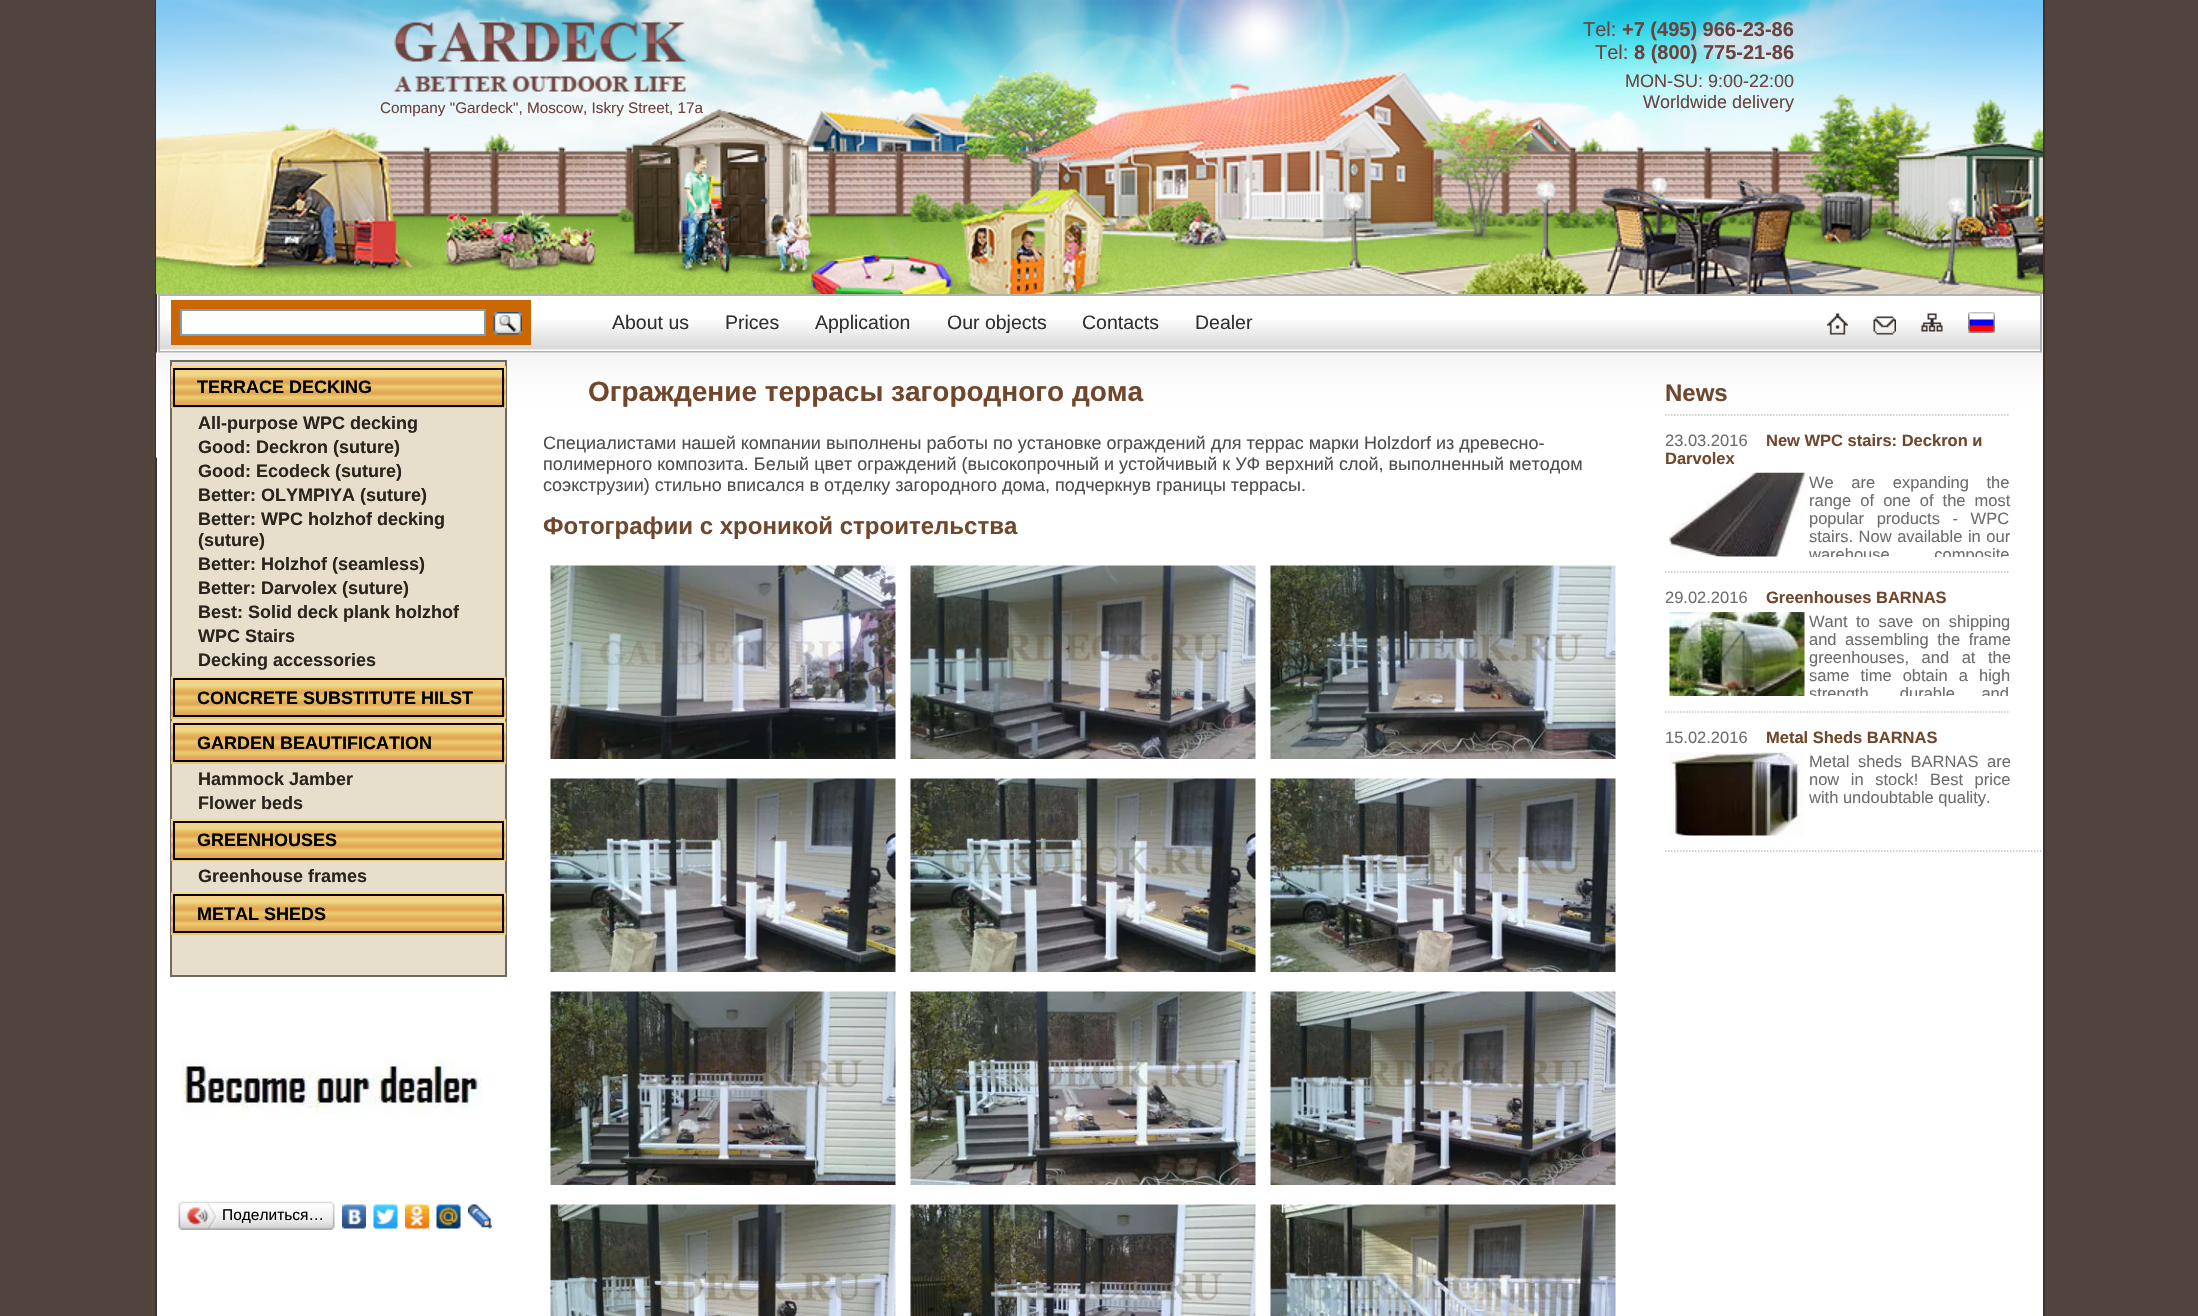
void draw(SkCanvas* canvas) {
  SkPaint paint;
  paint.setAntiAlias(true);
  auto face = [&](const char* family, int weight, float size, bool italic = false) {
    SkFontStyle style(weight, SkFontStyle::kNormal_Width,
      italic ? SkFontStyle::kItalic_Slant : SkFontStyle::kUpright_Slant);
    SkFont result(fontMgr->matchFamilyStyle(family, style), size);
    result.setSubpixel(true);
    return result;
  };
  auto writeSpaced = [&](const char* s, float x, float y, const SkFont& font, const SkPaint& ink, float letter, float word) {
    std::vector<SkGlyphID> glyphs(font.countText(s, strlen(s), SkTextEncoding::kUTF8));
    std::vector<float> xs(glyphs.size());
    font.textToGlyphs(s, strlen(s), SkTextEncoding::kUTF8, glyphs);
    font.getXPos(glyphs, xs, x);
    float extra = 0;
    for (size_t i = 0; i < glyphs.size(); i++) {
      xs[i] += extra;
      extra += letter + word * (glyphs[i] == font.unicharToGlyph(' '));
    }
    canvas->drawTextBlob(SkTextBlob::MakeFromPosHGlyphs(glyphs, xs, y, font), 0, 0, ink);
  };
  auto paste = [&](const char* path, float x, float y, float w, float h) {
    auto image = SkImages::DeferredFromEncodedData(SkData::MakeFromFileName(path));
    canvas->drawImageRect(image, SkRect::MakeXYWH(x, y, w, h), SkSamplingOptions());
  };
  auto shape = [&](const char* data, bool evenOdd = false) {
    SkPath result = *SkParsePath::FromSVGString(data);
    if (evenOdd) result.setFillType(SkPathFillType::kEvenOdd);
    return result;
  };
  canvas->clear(0xff51443f);
  {
    const struct { float x, y, w, h; SkColor color; } items[] = {
      {157, 294, 1886, 1022, 0xffffffff},
      {2043, 0, 2, 1316, 0xff3f312b},
      {155, 0, 2, 1316, 0xff3f312b},
    };
    for (auto [x, y, w, h, color] : items) {
      paint.setColor(color);
      canvas->drawRect(SkRect::MakeXYWH(x, y, w, h), paint);
    }
  }
  paste("img/1.png", 156, 0, 1887, 294);
  paste("img/2.png", 394, 22, 292, 70);
  paste("img/3.png", 157, 320, 1883, 30);
  paint.setStroke(true);
  paint.setStrokeWidth(2);
  paint.setColor(0xffb3b3b3);
  canvas->drawRect(SkRect::MakeXYWH(159, 295, 1882, 57), paint);
  paint.setStroke(false);
  paint.setColor(0xffcc6600);
  canvas->drawRect(SkRect::MakeXYWH(171, 300, 360, 45), paint);
  paint.setColor(0xffffffff);
  canvas->drawRect(SkRect::MakeXYWH(181, 310, 304, 25), paint);
  paint.setStroke(true);
  paint.setColor(0xff7f9db9);
  canvas->drawRect(SkRect::MakeXYWH(181, 310, 304, 25), paint);
  paste("img/4.png", 493, 312, 29, 23);
  paste("img/5.png", 1827, 313, 21, 22);
  paste("img/6.png", 1873, 316, 23, 19);
  paste("img/7.png", 1921, 313, 22, 19);
  paste("img/8.png", 1968, 312, 27, 21);
  paste("img/9.png", 156, 352, 1887, 106);
  paint.setStroke(false);
  paint.setColor(0xffe7dfcc);
  canvas->drawRect(SkRect::MakeXYWH(171, 361, 335, 615), paint);
  paint.setStroke(true);
  paint.setColor(0xff6f6962);
  canvas->drawRect(SkRect::MakeXYWH(171, 361, 335, 615), paint);
  paint.setStroke(false);
  paint.setColor(0xffeaca70);
  canvas->drawRect(SkRect::MakeXYWH(171, 366, 335, 42), paint);
  paste("img/10.png", 171, 366, 335, 41);
  paint.setStroke(true);
  paint.setColor(0xff060406);
  canvas->drawRect(SkRect::MakeXYWH(174, 369, 329, 37), paint);
  paint.setStroke(false);
  paint.setColor(0xffeaca70);
  canvas->drawRect(SkRect::MakeXYWH(171, 677, 335, 42), paint);
  paste("img/11.png", 171, 676, 335, 41);
  paint.setStroke(true);
  paint.setColor(0xff060406);
  canvas->drawRect(SkRect::MakeXYWH(174, 679, 329, 37), paint);
  paint.setStroke(false);
  paint.setColor(0xffeaca70);
  canvas->drawRect(SkRect::MakeXYWH(171, 722, 335, 42), paint);
  paste("img/11.png", 171, 721, 335, 41);
  paint.setStroke(true);
  paint.setColor(0xff060406);
  canvas->drawRect(SkRect::MakeXYWH(174, 724, 329, 37), paint);
  paint.setStroke(false);
  paint.setColor(0xffeaca70);
  canvas->drawRect(SkRect::MakeXYWH(171, 819, 335, 42), paint);
  paste("img/10.png", 171, 819, 335, 41);
  paint.setStroke(true);
  paint.setColor(0xff060406);
  canvas->drawRect(SkRect::MakeXYWH(174, 822, 329, 37), paint);
  paint.setStroke(false);
  paint.setColor(0xffeaca70);
  canvas->drawRect(SkRect::MakeXYWH(171, 893, 335, 42), paint);
  paste("img/11.png", 171, 892, 335, 41);
  paint.setStroke(true);
  paint.setColor(0xff060406);
  canvas->drawRect(SkRect::MakeXYWH(174, 895, 329, 37), paint);
  paste("img/12.png", 181, 1059, 302, 56);
  paste("img/13.png", 183, 1201, 147, 29);
  paste("img/14.png", 178, 1201, 5, 29);
  paste("img/15.png", 187, 1203, 31, 26);
  paste("img/16.png", 330, 1201, 5, 29);
  paste("img/17.png", 342, 1204, 24, 25);
  paste("img/18.png", 373, 1204, 25, 25);
  paste("img/19.png", 405, 1204, 24, 25);
  paste("img/20.png", 436, 1204, 25, 25);
  paste("img/21.png", 468, 1204, 24, 25);
  paste("img/22.png", 550, 565, 346, 194);
  paste("img/23.png", 910, 565, 346, 194);
  paste("img/24.png", 1270, 565, 346, 194);
  paste("img/25.png", 550, 778, 346, 194);
  paste("img/26.png", 910, 778, 346, 194);
  paste("img/27.png", 1270, 778, 346, 194);
  paste("img/28.png", 550, 991, 346, 194);
  paste("img/29.png", 910, 991, 346, 194);
  paste("img/30.png", 1270, 991, 346, 194);
  paste("img/31.png", 550, 1204, 346, 112);
  paste("img/32.png", 910, 1204, 346, 112);
  paste("img/33.png", 1270, 1204, 346, 112);
  paint.setStrokeWidth(1.5f);
  paint.setColor(0xffc6c6c6);
  paint.setPathEffect(SkDashPathEffect::Make({{1.5f, 1.5f}}, 0));
  canvas->drawPath(shape("M1665 851H2043"), paint);
  paint.setPathEffect(nullptr);
  paint.setPathEffect(SkDashPathEffect::Make({{1.5f, 1.5f}}, 0));
  canvas->drawPath(shape("M1665 415H2010"), paint);
  paint.setPathEffect(nullptr);
  paste("img/34.png", 1669, 472, 136, 85);
  paint.setPathEffect(SkDashPathEffect::Make({{1.5f, 1.5f}}, 0));
  canvas->drawPath(shape("M1665 572H2010"), paint);
  paint.setPathEffect(nullptr);
  paste("img/35.png", 1669, 612, 136, 84);
  paint.setPathEffect(SkDashPathEffect::Make({{1.5f, 1.5f}}, 0));
  canvas->drawPath(shape("M1665 712H2010"), paint);
  paint.setPathEffect(nullptr);
  paste("img/36.png", 1669, 751, 135, 85);
  auto f0 = face("Liberation Sans", 400, 15.3f);
  paint.setStroke(false);
  paint.setColor(0xff6b423e);
  canvas->drawString("Company \"Gardeck\", Moscow, Iskry Street, 17a", 380, 113, f0, paint);
  auto f1 = face("Liberation Sans", 400, 20);
  canvas->drawString("Tel:", 1583, 36, f1, paint);
  auto f2 = face("Liberation Sans", 700, 20);
  canvas->drawString("+7 (495) 966-23-86", 1622, 36, f2, paint);
  canvas->drawString("Tel:", 1595, 59, f1, paint);
  canvas->drawString("8 (800) 775-21-86", 1634, 59, f2, paint);
  auto f3 = face("Liberation Sans", 400, 18);
  canvas->drawString("MON-SU: 9:00-22:00", 1625, 87, f3, paint);
  canvas->drawString("Worldwide delivery", 1643, 108, f3, paint);
  auto f4 = face("Liberation Sans", 400, 19.5f);
  paint.setColor(0xff303030);
  {
    const struct { const char* s; float x, y; } items[] = {
      {"About us", 612, 329},
      {"Prices", 725, 329},
      {"Application", 815, 329},
      {"Our objects", 947, 329},
      {"Contacts", 1082, 329},
      {"Dealer", 1195, 329},
    };
    for (auto [s, x, y] : items) {
      canvas->drawString(s, x, y, f4, paint);
    }
  }
  auto f5 = face("Liberation Sans", 700, 18);
  paint.setColor(0xff000000);
  canvas->drawString("TERRACE DECKING", 197, 393, f5, paint);
  paint.setColor(0xff29241c);
  {
    const struct { const char* s; float x, y; } items[] = {
      {"All-purpose WPC decking", 198, 429},
      {"Good: Deckron (suture)", 198, 453},
      {"Good: Ecodeck (suture)", 198, 477},
      {"Better: OLYMPIYA (suture)", 198, 501},
      {"Better: WPC holzhof decking", 198, 525},
      {"(suture)", 198, 546},
      {"Better: Holzhof (seamless)", 198, 570},
      {"Better: Darvolex (suture)", 198, 594},
      {"Best: Solid deck plank holzhof", 198, 618},
      {"WPC Stairs", 198, 642},
      {"Decking accessories", 198, 666},
    };
    for (auto [s, x, y] : items) {
      canvas->drawString(s, x, y, f5, paint);
    }
  }
  paint.setColor(0xff000000);
  canvas->drawString("CONCRETE SUBSTITUTE HILST", 197, 704, f5, paint);
  canvas->drawString("GARDEN BEAUTIFICATION", 197, 749, f5, paint);
  paint.setColor(0xff29241c);
  canvas->drawString("Hammock Jamber", 198, 785, f5, paint);
  canvas->drawString("Flower beds", 198, 809, f5, paint);
  paint.setColor(0xff000000);
  canvas->drawString("GREENHOUSES", 197, 846, f5, paint);
  paint.setColor(0xff29241c);
  canvas->drawString("Greenhouse frames", 198, 882, f5, paint);
  paint.setColor(0xff000000);
  canvas->drawString("METAL SHEDS", 197, 920, f5, paint);
  auto f6 = face("Liberation Sans", 400, 15.5f);
  canvas->drawString("Поделиться…", 222, 1220, f6, paint);
  auto f7 = face("Liberation Sans", 700, 28);
  paint.setColor(0xff70472c);
  canvas->drawString("Ограждение террасы загородного дома", 588, 401, f7, paint);
  paint.setColor(0xff4e4e4e);
  {
    const struct { const char* s; float x, y; } items[] = {
      {"Специалистами нашей компании выполнены работы по установке ограждений для террас марки Holzdorf из древесно-", 543, 449},
      {"полимерного композита. Белый цвет ограждений (высокопрочный и устойчивый к УФ верхний слой, выполненный методом", 543, 470},
      {"соэкструзии) стильно вписался в отделку загородного дома, подчеркнув границы террасы.", 543, 491},
    };
    for (auto [s, x, y] : items) {
      canvas->drawString(s, x, y, f3, paint);
    }
  }
  auto f8 = face("Liberation Sans", 700, 24);
  paint.setColor(0xff70472c);
  canvas->drawString("Фотографии с хроникой строительства", 543, 534, f8, paint);
  canvas->drawString("News", 1665, 401, f8, paint);
  auto f9 = face("Liberation Sans", 400, 16.5f);
  paint.setColor(0xff6d6d6d);
  canvas->drawString("23.03.2016", 1665, 446, f9, paint);
  auto f10 = face("Liberation Sans", 700, 16.5f);
  paint.setColor(0xff70472c);
  canvas->drawString("New WPC stairs: Deckron и", 1766, 446, f10, paint);
  canvas->drawString("Darvolex", 1665, 464, f10, paint);
  paint.setColor(0xff6d6d6d);
  writeSpaced("We are expanding the", 1809, 488, f9, paint, 0, 13);
  writeSpaced("range of one of the most", 1809, 506, f9, paint, 0, 4.5f);
  writeSpaced("popular products - WPC", 1809, 524, f9, paint, 0, 8);
  writeSpaced("stairs. Now available in our", 1809, 542, f9, paint, 0, 1);
  canvas->save();
  canvas->clipRect(SkRect::MakeXYWH(1665, 473, 345, 84));
  writeSpaced("warehouse composite", 1809, 560, f9, paint, 0, 40);
  canvas->restore();
  canvas->drawString("29.02.2016", 1665, 603, f9, paint);
  paint.setColor(0xff70472c);
  canvas->drawString("Greenhouses BARNAS", 1766, 603, f10, paint);
  paint.setColor(0xff6d6d6d);
  writeSpaced("Want to save on shipping", 1809, 627, f9, paint, 0, 4);
  writeSpaced("and assembling the frame", 1809, 645, f9, paint, 0, 4);
  writeSpaced("greenhouses, and at the", 1809, 663, f9, paint, 0, 8);
  writeSpaced("same time obtain a high", 1809, 681, f9, paint, 0, 6.5f);
  canvas->save();
  canvas->clipRect(SkRect::MakeXYWH(1665, 612, 345, 84));
  writeSpaced("strength, durable and", 1809, 699, f9, paint, 0, 22);
  canvas->restore();
  canvas->drawString("15.02.2016", 1665, 743, f9, paint);
  paint.setColor(0xff70472c);
  canvas->drawString("Metal Sheds BARNAS", 1766, 743, f10, paint);
  paint.setColor(0xff6d6d6d);
  writeSpaced("Metal sheds BARNAS are", 1809, 767, f9, paint, 0, 4);
  writeSpaced("now in stock! Best price", 1809, 785, f9, paint, 0, 7);
  canvas->drawString("with undoubtable quality.", 1809, 803, f9, paint);
}
